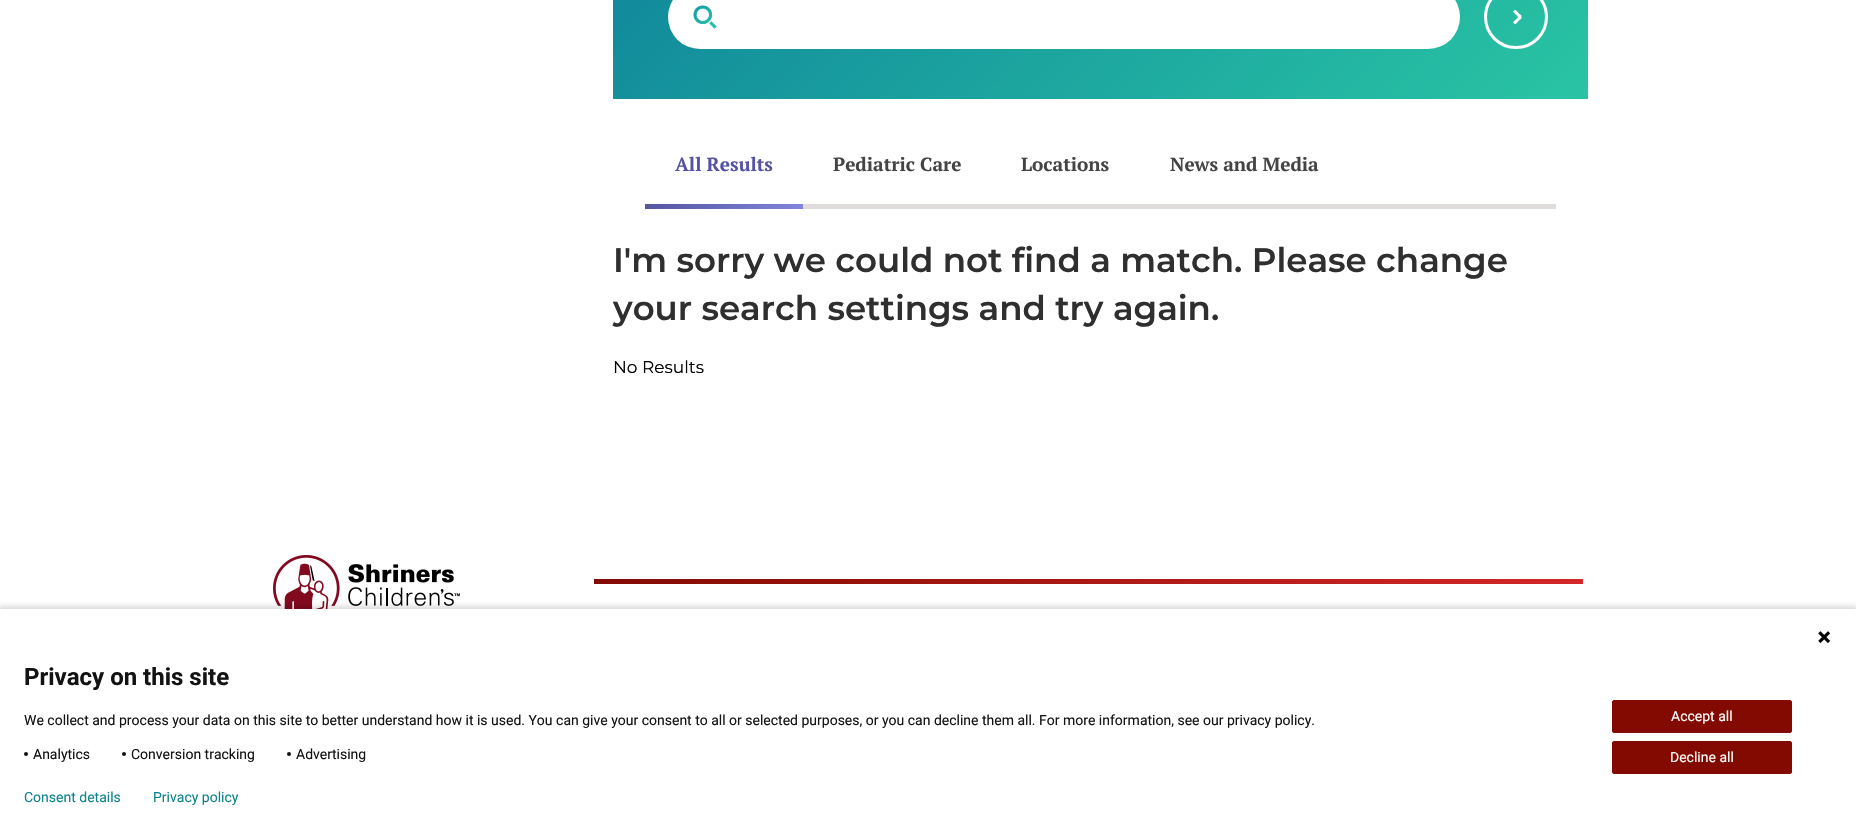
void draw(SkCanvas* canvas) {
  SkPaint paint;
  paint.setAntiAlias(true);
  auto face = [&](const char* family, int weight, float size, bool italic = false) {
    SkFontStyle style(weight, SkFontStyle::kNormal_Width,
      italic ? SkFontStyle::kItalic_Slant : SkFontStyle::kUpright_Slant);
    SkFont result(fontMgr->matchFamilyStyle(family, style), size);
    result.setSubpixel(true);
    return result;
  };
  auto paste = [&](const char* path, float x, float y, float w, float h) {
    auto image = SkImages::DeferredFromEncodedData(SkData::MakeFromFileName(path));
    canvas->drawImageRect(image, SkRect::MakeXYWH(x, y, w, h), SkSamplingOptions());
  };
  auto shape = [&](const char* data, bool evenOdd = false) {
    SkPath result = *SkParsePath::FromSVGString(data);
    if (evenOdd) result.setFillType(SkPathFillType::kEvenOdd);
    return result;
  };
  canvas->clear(0xffffffff);
  {
    const SkColor colors[] = {0xff10879b, 0xff29c4a4};
    const float stops[] = {0, 1};
    const SkPoint ends[] = {{816, -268}, {1385, 302}};
    paint.setShader(SkGradientShader::MakeLinear(ends, colors, stops, 2, SkTileMode::kClamp));
    paint.setAlpha(255);
  }
  canvas->drawRect(SkRect::MakeXYWH(613, 0, 975, 99), paint);
  paint.setShader(nullptr);
  paint.setColor(0xffffffff);
  canvas->drawRoundRect(SkRect::MakeXYWH(668, -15, 792, 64), 32, 32, paint);
  paste("img/1.png", 693, 5, 24, 24);
  canvas->drawPath(shape("M1520.5 16C1523 18.5 1520.5 19 1518.5 21C1516.5 23 1516 25.5 1513.5 23C1512.5 22 1516 19.5 1516.5 19C1517 18.5 1519.5 15 1520.5 16Z"), paint);
  canvas->drawPath(shape("M1513.5 11C1516 8.5 1516.5 11 1518.5 13C1520.5 15 1523 15.5 1520.5 18C1519.5 19 1517 15.5 1516.5 15C1516 14.5 1512.5 12 1513.5 11Z"), paint);
  paint.setStroke(true);
  paint.setStrokeWidth(3);
  canvas->drawCircle(1516, 17, 30.5f, paint);
  paint.setStroke(false);
  paint.setColor(0xffe1dcdc);
  canvas->drawRect(SkRect::MakeXYWH(803, 204, 753, 5), paint);
  {
    const SkColor colors[] = {0xff5355a2, 0xff8285db};
    const float stops[] = {0, 1};
    const SkPoint ends[] = {{683, 166}, {765, 247}};
    paint.setShader(SkGradientShader::MakeLinear(ends, colors, stops, 2, SkTileMode::kClamp));
    paint.setAlpha(255);
  }
  canvas->drawRect(SkRect::MakeXYWH(645, 204, 158, 5), paint);
  paste("img/2.png", 273, 555, 187, 54);
  {
    const SkColor colors[] = {0xff820a00, 0xffd42729};
    const float stops[] = {0, 1};
    const SkPoint ends[] = {{594, 582}, {1583, 582}};
    paint.setShader(SkGradientShader::MakeLinear(ends, colors, stops, 2, SkTileMode::kClamp));
    paint.setAlpha(255);
  }
  canvas->drawRect(SkRect::MakeXYWH(594, 579, 989, 5), paint);
  paint.setShader(nullptr);
  paint.setColor(0x24000000);
  paint.setMaskFilter(SkMaskFilter::MakeBlur(kNormal_SkBlurStyle, 2.5f));
  canvas->drawRect(SkRect::MakeXYWH(-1, 606, 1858, 217), paint);
  paint.setMaskFilter(nullptr);
  paint.setColor(0xffffffff);
  canvas->drawRect(SkRect::MakeXYWH(0, 609, 1856, 215), paint);
  paste("img/3.png", 1818, 631, 13, 13);
  paint.setColor(0xff131313);
  canvas->drawCircle(26, 754, 2, paint);
  canvas->drawCircle(124, 754, 2, paint);
  canvas->drawCircle(289, 754, 2, paint);
  paint.setColor(0xff820a00);
  canvas->drawRoundRect(SkRect::MakeXYWH(1612.5f, 700.5f, 179, 32), 1.5f, 1.5f, paint);
  paint.setStroke(true);
  paint.setStrokeWidth(1);
  canvas->drawRoundRect(SkRect::MakeXYWH(1612.5f, 700.5f, 179, 32), 1.5f, 1.5f, paint);
  paint.setStroke(false);
  canvas->drawRoundRect(SkRect::MakeXYWH(1612.5f, 741.5f, 179, 32), 1.5f, 1.5f, paint);
  paint.setStroke(true);
  canvas->drawRoundRect(SkRect::MakeXYWH(1612.5f, 741.5f, 179, 32), 1.5f, 1.5f, paint);
  auto f0 = face("PT Serif", 700, 19);
  paint.setStroke(false);
  paint.setColor(0xff5452a4);
  canvas->drawString("All Results", 675, 171, f0, paint);
  paint.setColor(0xff444444);
  {
    const struct { const char* s; float x, y; } items[] = {
      {"Pediatric Care", 833, 171},
      {"Locations", 1021, 171},
      {"News and Media", 1170, 171},
    };
    for (auto [s, x, y] : items) {
      canvas->drawString(s, x, y, f0, paint);
    }
  }
  auto f1 = face("Montserrat", 600, 34);
  paint.setColor(0xff2f2f2f);
  canvas->drawString("I'm sorry we could not find a match. Please change", 613, 272, f1, paint);
  canvas->drawString("your search settings and try again.", 613, 320, f1, paint);
  auto f2 = face("Montserrat", 400, 17);
  paint.setColor(0xff000000);
  canvas->drawString("No Results", 613, 373, f2, paint);
  auto f3 = face("Roboto", 700, 24);
  paint.setColor(0xff131313);
  canvas->drawString("Privacy on this site", 24, 685, f3, paint);
  auto f4 = face("Roboto", 400, 14);
  {
    const struct { const char* s; float x, y; } items[] = {
      {"We collect and process your data on this site to better understand how it is used. You can give your consent to all or selected purposes, or you can decline them all. For more information, see our privacy policy.", 24, 725},
      {"Analytics", 33, 759},
      {"Conversion tracking", 131, 759},
      {"Advertising", 296, 759},
    };
    for (auto [s, x, y] : items) {
      canvas->drawString(s, x, y, f4, paint);
    }
  }
  paint.setColor(0xffffffff);
  canvas->drawString("Accept all", 1671, 721, f4, paint);
  canvas->drawString("Decline all", 1670, 762, f4, paint);
  paint.setColor(0xff0e838c);
  canvas->drawString("Consent details", 24, 802, f4, paint);
  canvas->drawString("Privacy policy", 153, 802, f4, paint);
}
